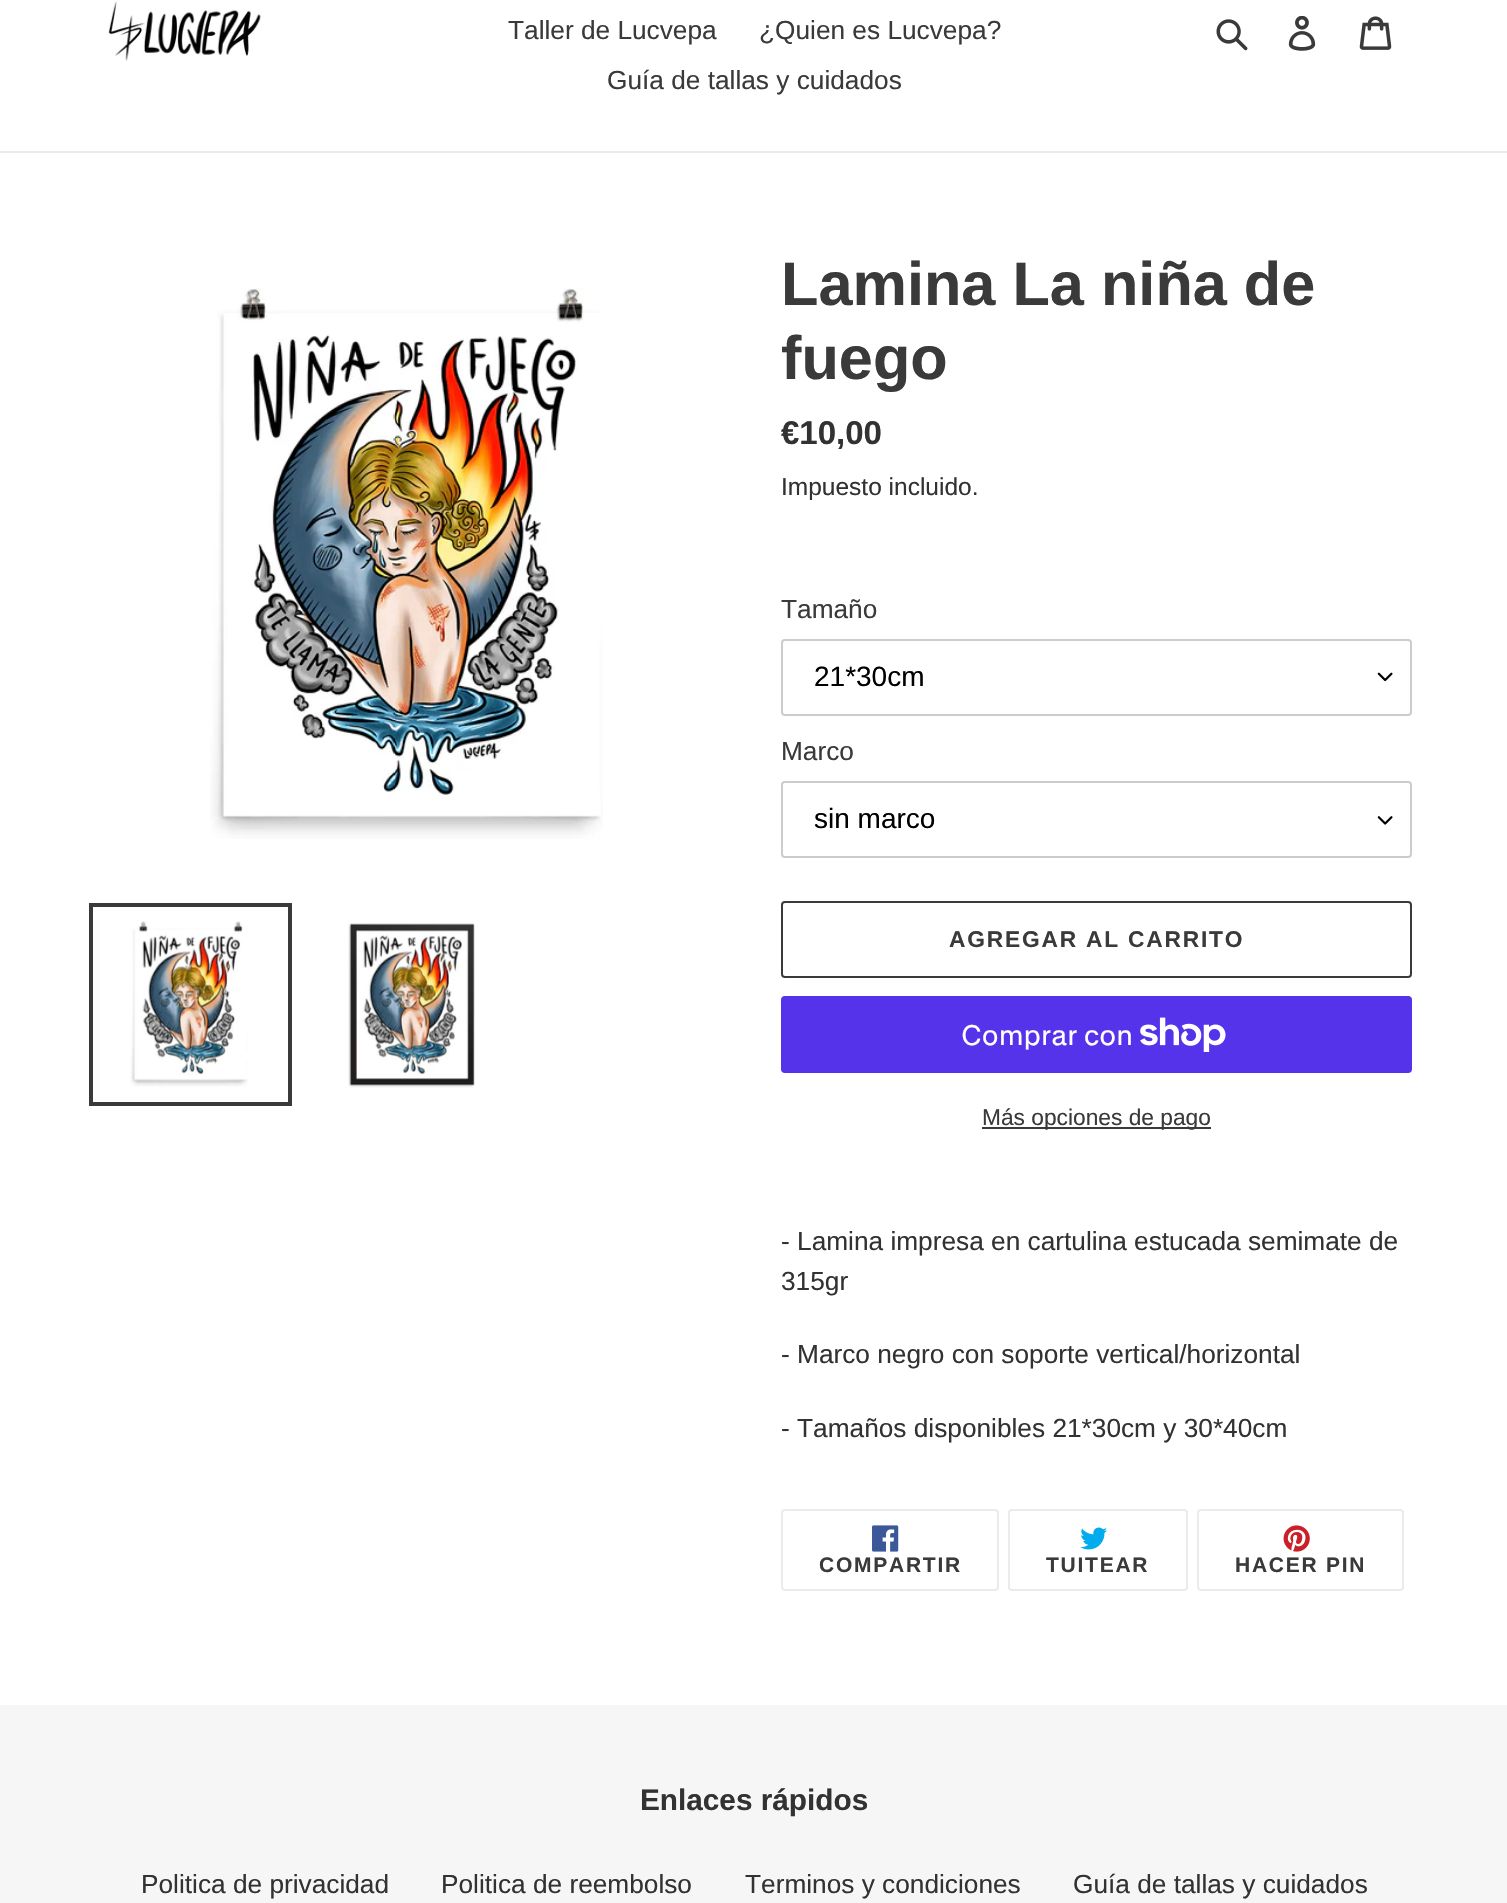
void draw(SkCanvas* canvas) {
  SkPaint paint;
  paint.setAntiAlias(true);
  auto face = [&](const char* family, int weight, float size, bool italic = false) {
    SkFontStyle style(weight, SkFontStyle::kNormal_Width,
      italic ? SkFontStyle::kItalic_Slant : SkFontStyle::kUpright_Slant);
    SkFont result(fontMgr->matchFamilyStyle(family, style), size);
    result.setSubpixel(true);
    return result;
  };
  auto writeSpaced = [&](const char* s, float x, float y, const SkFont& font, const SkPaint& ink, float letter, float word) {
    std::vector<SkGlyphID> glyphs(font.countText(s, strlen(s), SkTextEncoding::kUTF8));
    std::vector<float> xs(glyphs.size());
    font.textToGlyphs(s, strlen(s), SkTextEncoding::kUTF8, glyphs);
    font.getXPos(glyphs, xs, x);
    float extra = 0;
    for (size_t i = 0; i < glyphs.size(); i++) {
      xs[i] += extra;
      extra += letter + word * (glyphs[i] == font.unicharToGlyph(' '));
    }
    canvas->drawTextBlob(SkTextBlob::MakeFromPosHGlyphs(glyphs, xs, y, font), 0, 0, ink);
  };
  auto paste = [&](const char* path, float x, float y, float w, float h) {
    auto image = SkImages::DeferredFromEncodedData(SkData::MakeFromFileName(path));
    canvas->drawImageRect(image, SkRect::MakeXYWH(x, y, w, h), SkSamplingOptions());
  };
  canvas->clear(0xffffffff);
  paint.setColor(0xffebebeb);
  canvas->drawRect(SkRect::MakeXYWH(0, 151, 1507, 2), paint);
  paste("img/1.png", 108, 1, 153, 60);
  paste("img/2.png", 1216, 19, 32, 32);
  paste("img/3.png", 1288, 16, 28, 35);
  paste("img/4.png", 1359, 16, 33, 34);
  paste("img/5.png", 210, 288, 393, 551);
  paint.setStroke(true);
  paint.setStrokeWidth(4);
  paint.setColor(0xff3a3a3a);
  canvas->drawRect(SkRect::MakeXYWH(91, 905, 199, 199), paint);
  paste("img/6.png", 130, 921, 118, 166);
  paste("img/7.png", 348, 923, 127, 165);
  paste("img/8.png", 1377, 672, 16, 10);
  paint.setStrokeWidth(2);
  paint.setColor(0xffcccccc);
  canvas->drawRoundRect(SkRect::MakeXYWH(782, 640, 629, 75), 3, 3, paint);
  paste("img/9.png", 1377, 816, 16, 9);
  canvas->drawRoundRect(SkRect::MakeXYWH(782, 782, 629, 75), 3, 3, paint);
  paint.setColor(0xff3a3a3a);
  canvas->drawRoundRect(SkRect::MakeXYWH(782, 902, 629, 75), 3, 3, paint);
  paint.setStroke(false);
  paint.setColor(0xff5433eb);
  canvas->drawRoundRect(SkRect::MakeXYWH(781, 996, 631, 77), 4, 4, paint);
  paste("img/10.png", 1140, 1017, 86, 35);
  paint.setColor(0xff3a3a3a);
  canvas->drawRect(SkRect::MakeXYWH(982, 1127, 229, 2), paint);
  paint.setStroke(true);
  paint.setColor(0xffebebeb);
  canvas->drawRoundRect(SkRect::MakeXYWH(782, 1510, 216, 80), 3, 3, paint);
  paste("img/11.png", 872, 1525, 27, 27);
  canvas->drawRoundRect(SkRect::MakeXYWH(1009, 1510, 178, 80), 3, 3, paint);
  paste("img/12.png", 1080, 1527, 27, 23);
  canvas->drawRoundRect(SkRect::MakeXYWH(1198, 1510, 205, 80), 3, 3, paint);
  paste("img/13.png", 1283, 1525, 27, 27);
  paint.setStroke(false);
  paint.setColor(0xfff6f6f6);
  canvas->drawRect(SkRect::MakeXYWH(0, 1705, 1507, 198), paint);
  auto f0 = face("Liberation Sans", 400, 26.25f);
  paint.setColor(0xff3a3a3a);
  {
    const struct { const char* s; float x, y; } items[] = {
      {"Taller de Lucvepa", 508, 39},
      {"¿Quien es Lucvepa?", 759, 39},
      {"Guía de tallas y cuidados", 607, 89},
    };
    for (auto [s, x, y] : items) {
      canvas->drawString(s, x, y, f0, paint);
    }
  }
  auto f1 = face("Liberation Sans", 700, 61.25f);
  canvas->drawString("Lamina La niña de", 781, 305, f1, paint);
  canvas->drawString("fuego", 781, 379, f1, paint);
  auto f2 = face("Liberation Sans", 700, 33);
  paint.setColor(0xff333232);
  canvas->drawString("€10,00", 781, 444, f2, paint);
  auto f3 = face("Liberation Sans", 400, 24.5f);
  canvas->drawString("Impuesto incluido.", 781, 495, f3, paint);
  paint.setColor(0xff3a3a3a);
  canvas->drawString("Tamaño", 781, 618, f0, paint);
  auto f4 = face("Liberation Sans", 400, 28);
  paint.setColor(0xff000000);
  canvas->drawString("21*30cm", 814, 686, f4, paint);
  paint.setColor(0xff3a3a3a);
  canvas->drawString("Marco", 781, 760, f0, paint);
  paint.setColor(0xff000000);
  canvas->drawString("sin marco", 814, 828, f4, paint);
  auto f5 = face("Liberation Sans", 700, 22.75f);
  paint.setColor(0xff3a3a3a);
  writeSpaced("AGREGAR AL CARRITO", 949, 947, f5, paint, 1.8f, 0);
  auto f6 = face("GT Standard", 400, 28);
  paint.setColor(0xffffffff);
  canvas->drawString("Comprar con", 961, 1045, f6, paint);
  auto f7 = face("Liberation Sans", 400, 22.75f);
  paint.setColor(0xff3a3a3a);
  canvas->drawString("Más opciones de pago", 982, 1125, f7, paint);
  paint.setColor(0xff333232);
  {
    const struct { const char* s; float x, y; } items[] = {
      {"- Lamina impresa en cartulina estucada semimate de", 781, 1250},
      {"315gr", 781, 1290},
      {"- Marco negro con soporte vertical/horizontal", 781, 1363},
      {"- Tamaños disponibles 21*30cm y 30*40cm", 781, 1437},
    };
    for (auto [s, x, y] : items) {
      canvas->drawString(s, x, y, f0, paint);
    }
  }
  auto f8 = face("Liberation Sans", 700, 21);
  paint.setColor(0xff3a3a3a);
  {
    const struct { const char* s; float x, y; } items[] = {
      {"COMPARTIR", 819, 1572},
      {"TUITEAR", 1046, 1572},
      {"HACER PIN", 1235, 1572},
    };
    for (auto [s, x, y] : items) {
      writeSpaced(s, x, y, f8, paint, 1.75f, 0);
    }
  }
  auto f9 = face("Liberation Sans", 700, 29.75f);
  paint.setColor(0xff333232);
  canvas->drawString("Enlaces rápidos", 640, 1810, f9, paint);
  {
    const struct { const char* s; float x, y; } items[] = {
      {"Politica de privacidad", 141, 1893},
      {"Politica de reembolso", 441, 1893},
      {"Terminos y condiciones", 745, 1893},
      {"Guía de tallas y cuidados", 1073, 1893},
    };
    for (auto [s, x, y] : items) {
      canvas->drawString(s, x, y, f0, paint);
    }
  }
}
